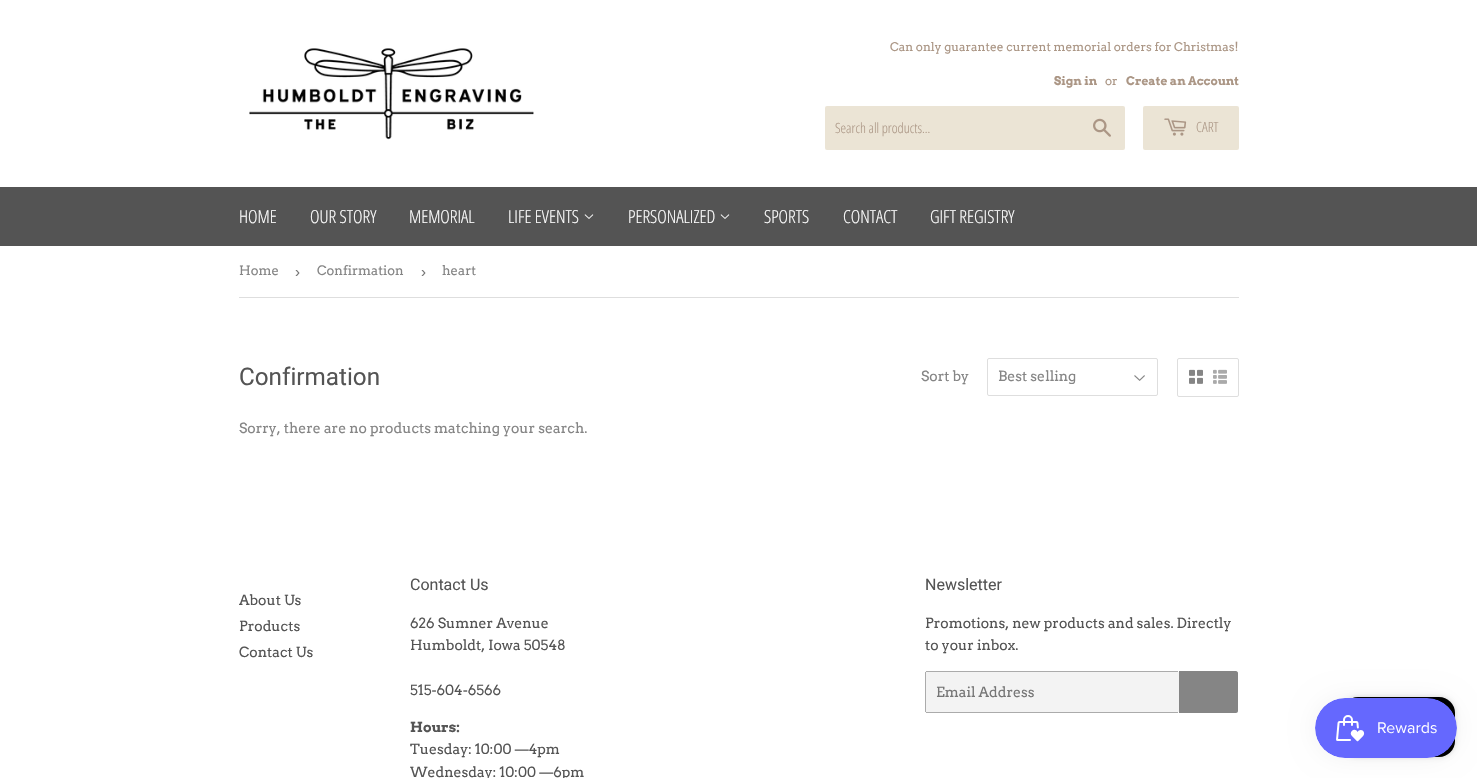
void draw(SkCanvas* canvas) {
  SkPaint paint;
  paint.setAntiAlias(true);
  auto face = [&](const char* family, int weight, float size, bool italic = false) {
    SkFontStyle style(weight, SkFontStyle::kNormal_Width,
      italic ? SkFontStyle::kItalic_Slant : SkFontStyle::kUpright_Slant);
    SkFont result(fontMgr->matchFamilyStyle(family, style), size);
    result.setSubpixel(true);
    return result;
  };
  auto paste = [&](const char* path, float x, float y, float w, float h) {
    auto image = SkImages::DeferredFromEncodedData(SkData::MakeFromFileName(path));
    canvas->drawImageRect(image, SkRect::MakeXYWH(x, y, w, h), SkSamplingOptions());
  };
  auto shape = [&](const char* data, bool evenOdd = false) {
    SkPath result = *SkParsePath::FromSVGString(data);
    if (evenOdd) result.setFillType(SkPathFillType::kEvenOdd);
    return result;
  };
  canvas->clear(0xffffffff);
  paste("img/1.png", 249, 48, 285, 92);
  paint.setColor(0xffebe4d5);
  canvas->drawRoundRect(SkRect::MakeXYWH(825, 106, 300, 44), 2, 2, paint);
  paste("img/2.png", 1093, 118, 18, 19);
  canvas->drawRoundRect(SkRect::MakeXYWH(1143, 106, 96, 44), 2, 2, paint);
  paste("img/3.png", 1164, 118, 23, 18);
  paint.setColor(0xff545454);
  canvas->drawRect(SkRect::MakeXYWH(0, 187, 1477, 59), paint);
  paste("img/4.png", 584, 214, 10, 5);
  paste("img/4.png", 720, 214, 10, 5);
  paint.setColor(0xffdedede);
  canvas->drawRect(SkRect::MakeXYWH(239, 297, 1000, 1), paint);
  paste("img/5.png", 1134, 375, 11, 6);
  paint.setStroke(true);
  paint.setStrokeWidth(1);
  canvas->drawRoundRect(SkRect::MakeXYWH(987.5f, 358.5f, 170, 37), 1.5f, 1.5f, paint);
  canvas->drawRoundRect(SkRect::MakeXYWH(1177.5f, 358.5f, 61, 38), 1.5f, 1.5f, paint);
  paste("img/6.png", 1189, 369, 14, 15);
  paste("img/7.png", 1213, 369, 14, 15);
  paint.setStroke(false);
  paint.setColor(0xfff3f3f3);
  canvas->drawRoundRect(SkRect::MakeXYWH(925, 671, 254, 42), 2, 2, paint);
  {
    const struct { float x, y, w, h; SkColor color; } items[] = {
      {926, 671, 252, 1, 0xffababab},
      {926, 712, 252, 1, 0xffababab},
      {925, 672, 1, 40, 0xffababab},
    };
    for (auto [x, y, w, h, color] : items) {
      paint.setColor(color);
      canvas->drawRect(SkRect::MakeXYWH(x, y, w, h), paint);
    }
  }
  paint.setColor(0xff858585);
  canvas->drawPath(shape("M1179 671H1236C1237 671 1238 672 1238 673V711C1238 712 1237 713 1236 713H1179Z"), paint);
  paint.setColor(0x26000000);
  paint.setMaskFilter(SkMaskFilter::MakeBlur(kNormal_SkBlurStyle, 2.5f));
  canvas->drawRoundRect(SkRect::MakeXYWH(1342, 697, 113, 60), 16, 16, paint);
  paint.setMaskFilter(nullptr);
  paint.setColor(0xff000000);
  canvas->drawRoundRect(SkRect::MakeXYWH(1342, 697, 113, 60), 16, 16, paint);
  paint.setColor(0x0d000000);
  paint.setMaskFilter(SkMaskFilter::MakeBlur(kNormal_SkBlurStyle, 12.5f));
  canvas->drawRoundRect(SkRect::MakeXYWH(1315, 698, 142, 60), 30, 30, paint);
  paint.setMaskFilter(nullptr);
  paste("img/8.png", 1315, 698, 142, 60);
  auto f0 = face("Arvo", 400, 11.9f);
  paint.setColor(0xffab9685);
  canvas->drawString("Can only guarantee current memorial orders for Christmas!", 890, 51, f0, paint);
  auto f1 = face("Arvo", 700, 11.9f);
  canvas->drawString("Sign in", 1054, 85, f1, paint);
  canvas->drawString("or", 1105, 85, f0, paint);
  canvas->drawString("Create an Account", 1126, 85, f1, paint);
  auto f2 = face("Open Sans Condensed", 300, 14);
  canvas->drawString("Search all products...", 835, 133, f2, paint);
  canvas->drawString("CART", 1196, 132, f2, paint);
  auto f3 = face("Open Sans Condensed", 300, 18);
  paint.setColor(0xffffffff);
  {
    const struct { const char* s; float x, y; } items[] = {
      {"HOME", 239, 223},
      {"OUR STORY", 310, 223},
      {"MEMORIAL", 409, 223},
      {"LIFE EVENTS", 508, 223},
      {"PERSONALIZED", 628, 223},
      {"SPORTS", 764, 223},
      {"CONTACT", 843, 223},
      {"GIFT REGISTRY", 930, 223},
    };
    for (auto [s, x, y] : items) {
      canvas->drawString(s, x, y, f3, paint);
    }
  }
  auto f4 = face("Arvo", 400, 13);
  paint.setColor(0xff858585);
  canvas->drawString("Home", 239, 275, f4, paint);
  auto f5 = face("Liberation Sans", 400, 15);
  paint.setColor(0xff767676);
  canvas->drawString("›", 295, 277, f5, paint);
  paint.setColor(0xff858585);
  canvas->drawString("Confirmation", 317, 275, f4, paint);
  paint.setColor(0xff767676);
  canvas->drawString("›", 421, 277, f5, paint);
  paint.setColor(0xff858585);
  canvas->drawString("heart", 442, 275, f4, paint);
  auto f6 = face("Roboto", 400, 24.25f);
  paint.setColor(0xff545454);
  canvas->drawString("Confirmation", 239, 385, f6, paint);
  auto f7 = face("Arvo", 400, 14);
  paint.setColor(0xff858585);
  {
    const struct { const char* s; float x, y; } items[] = {
      {"Sort by", 921, 381},
      {"Best selling", 998, 381},
      {"Sorry, there are no products matching your search.", 239, 433},
    };
    for (auto [s, x, y] : items) {
      canvas->drawString(s, x, y, f7, paint);
    }
  }
  paint.setColor(0xff545454);
  {
    const struct { const char* s; float x, y; } items[] = {
      {"About Us", 239, 605},
      {"Products", 239, 631},
      {"Contact Us", 239, 657},
    };
    for (auto [s, x, y] : items) {
      canvas->drawString(s, x, y, f7, paint);
    }
  }
  auto f8 = face("Roboto", 400, 16);
  canvas->drawString("Contact Us", 410, 590, f8, paint);
  {
    const struct { const char* s; float x, y; } items[] = {
      {"626 Sumner Avenue", 410, 628},
      {"Humboldt, Iowa 50548", 410, 650},
      {"515-604-6566", 410, 695},
    };
    for (auto [s, x, y] : items) {
      canvas->drawString(s, x, y, f7, paint);
    }
  }
  auto f9 = face("Arvo", 700, 14);
  canvas->drawString("Hours:", 410, 732, f9, paint);
  canvas->drawString("Tuesday: 10:00 —4pm", 410, 754, f7, paint);
  canvas->drawString("Wednesday: 10:00 —6pm", 410, 777, f7, paint);
  canvas->drawString("Newsletter", 925, 590, f8, paint);
  canvas->drawString("Promotions, new products and sales. Directly", 925, 628, f7, paint);
  canvas->drawString("to your inbox.", 925, 650, f7, paint);
  paint.setColor(0xff767676);
  canvas->drawString("Email Address", 936, 697, f7, paint);
}
